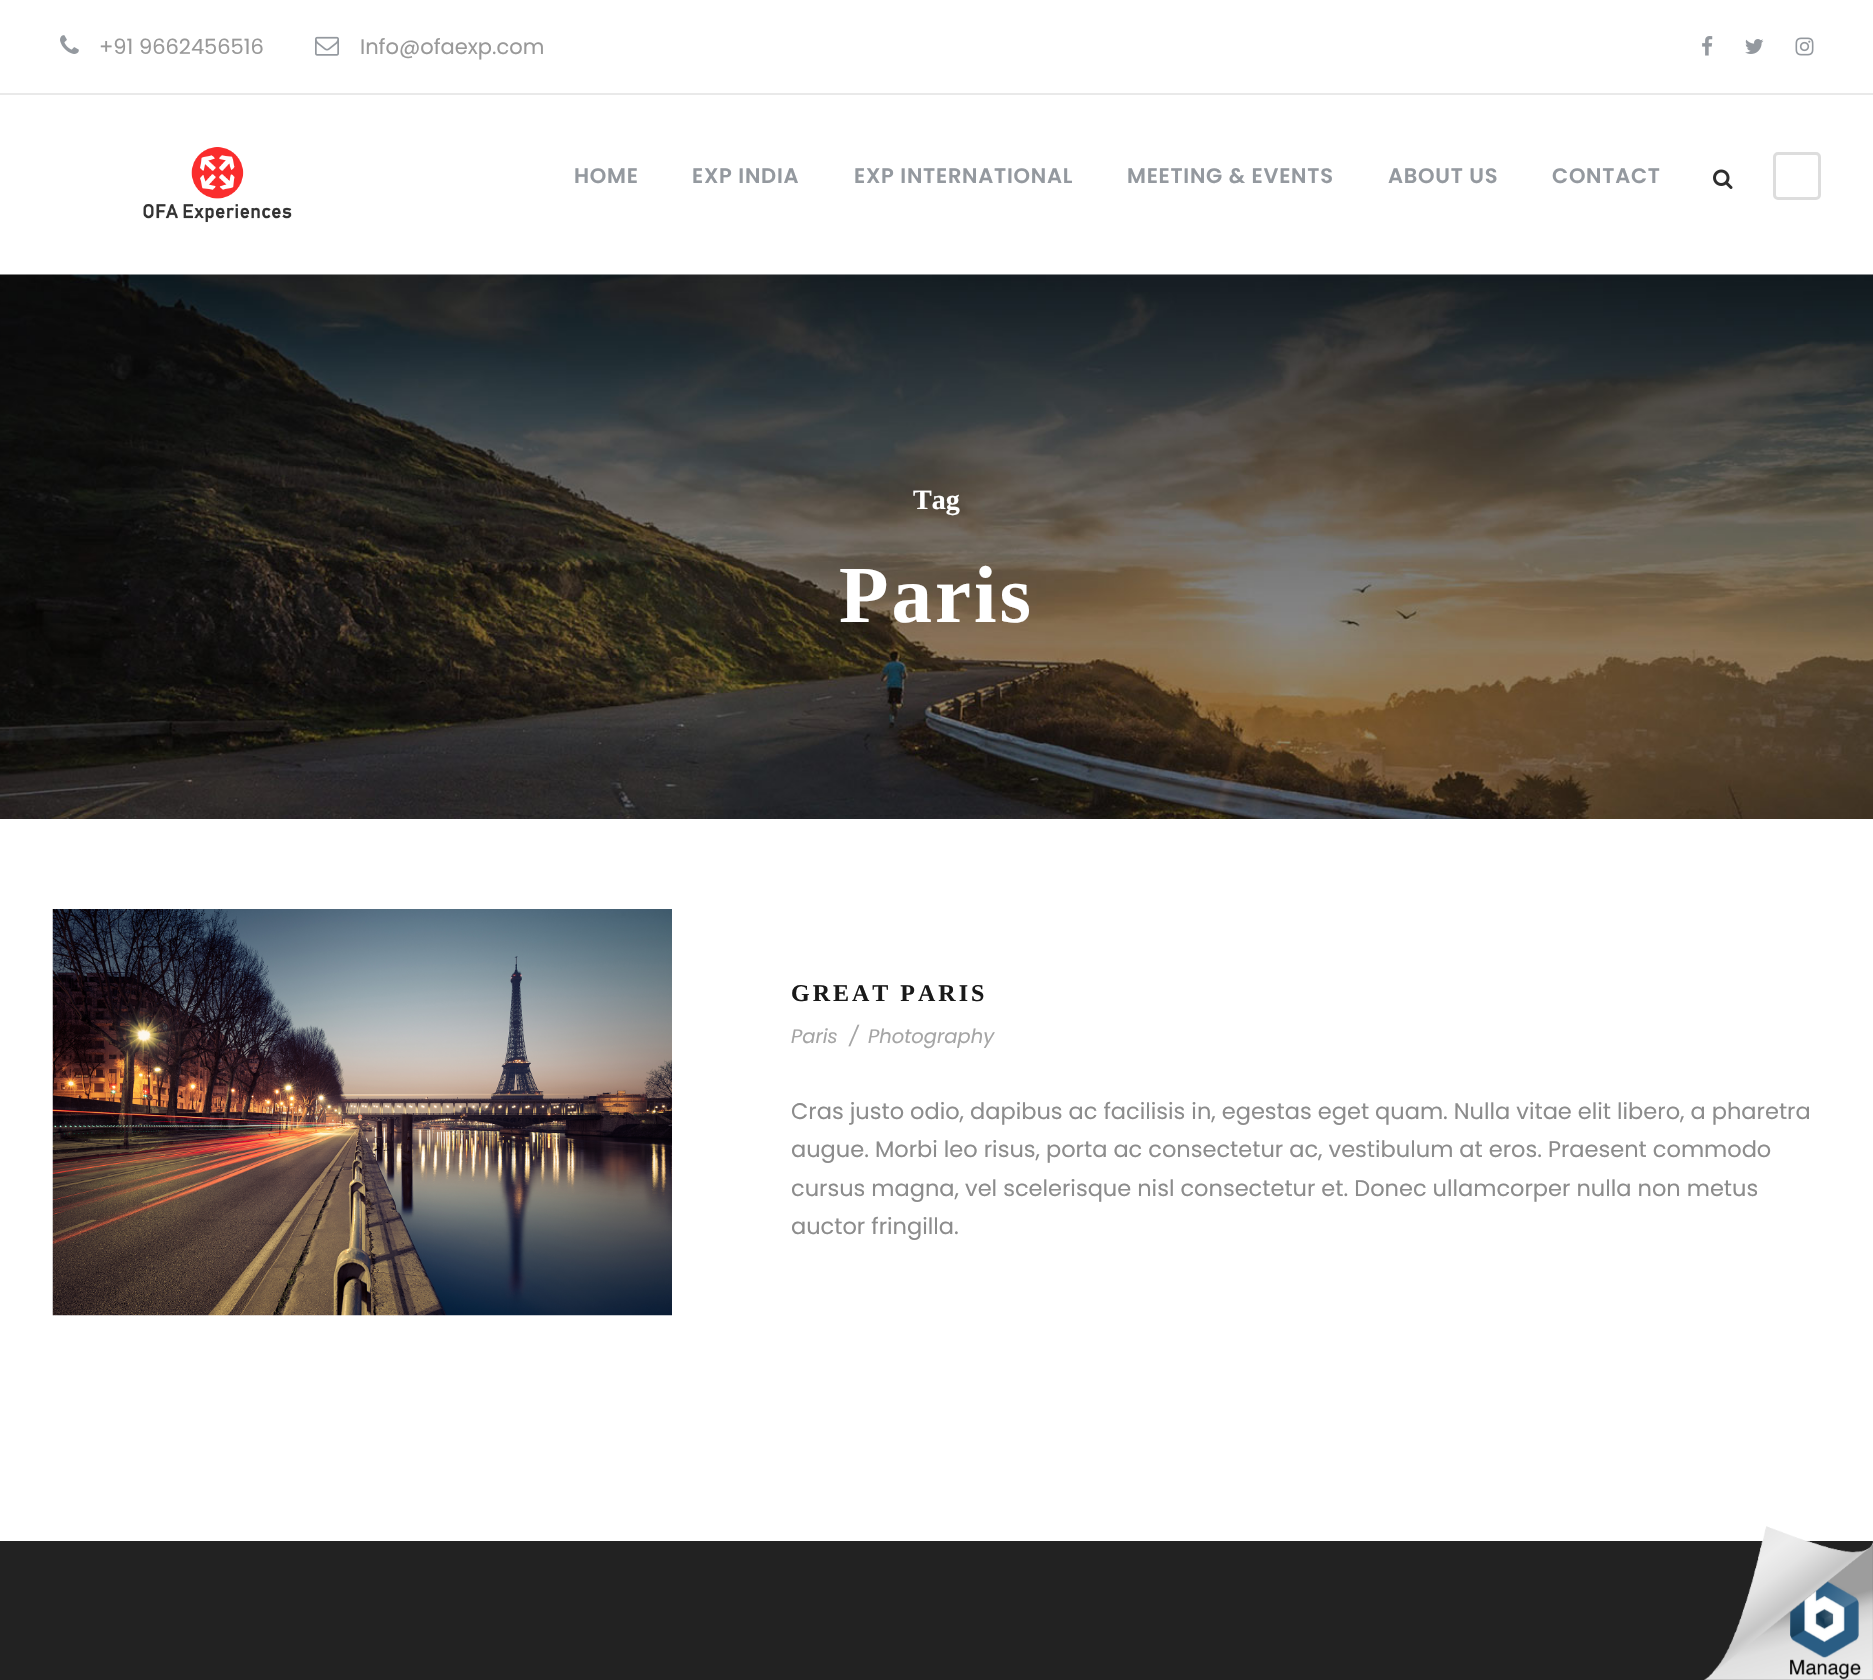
void draw(SkCanvas* canvas) {
  SkPaint paint;
  paint.setAntiAlias(true);
  auto face = [&](const char* family, int weight, float size, bool italic = false) {
    SkFontStyle style(weight, SkFontStyle::kNormal_Width,
      italic ? SkFontStyle::kItalic_Slant : SkFontStyle::kUpright_Slant);
    SkFont result(fontMgr->matchFamilyStyle(family, style), size);
    result.setSubpixel(true);
    return result;
  };
  auto writeSpaced = [&](const char* s, float x, float y, const SkFont& font, const SkPaint& ink, float letter, float word) {
    std::vector<SkGlyphID> glyphs(font.countText(s, strlen(s), SkTextEncoding::kUTF8));
    std::vector<float> xs(glyphs.size());
    font.textToGlyphs(s, strlen(s), SkTextEncoding::kUTF8, glyphs);
    font.getXPos(glyphs, xs, x);
    float extra = 0;
    for (size_t i = 0; i < glyphs.size(); i++) {
      xs[i] += extra;
      extra += letter + word * (glyphs[i] == font.unicharToGlyph(' '));
    }
    canvas->drawTextBlob(SkTextBlob::MakeFromPosHGlyphs(glyphs, xs, y, font), 0, 0, ink);
  };
  auto paste = [&](const char* path, float x, float y, float w, float h) {
    auto image = SkImages::DeferredFromEncodedData(SkData::MakeFromFileName(path));
    canvas->drawImageRect(image, SkRect::MakeXYWH(x, y, w, h), SkSamplingOptions());
  };
  canvas->clear(0xffffffff);
  paint.setColor(0xffe9e9e9);
  canvas->drawRect(SkRect::MakeXYWH(0, 93, 1873, 2), paint);
  paste("img/1.png", 60, 35, 19, 19);
  paste("img/2.png", 315, 36, 24, 20);
  paste("img/3.png", 1702, 36, 11, 20);
  paste("img/4.png", 1745, 39, 19, 15);
  paste("img/5.png", 1795, 37, 19, 19);
  paste("img/6.png", 143, 147, 149, 76);
  paste("img/7.png", 1713, 169, 20, 20);
  paint.setStroke(true);
  paint.setStrokeWidth(3);
  paint.setColor(0xffdddddd);
  canvas->drawRoundRect(SkRect::MakeXYWH(1774.5f, 153.5f, 45, 45), 3.5f, 3.5f, paint);
  paste("img/8.png", 0, 274, 1873, 545);
  paste("img/9.png", 52, 909, 620, 407);
  paint.setStroke(false);
  paint.setColor(0xff222222);
  canvas->drawRect(SkRect::MakeXYWH(0, 1541, 1873, 139), paint);
  paste("img/10.png", 1704, 1526, 169, 154);
  auto f0 = face("Poppins", 400, 21);
  paint.setColor(0xff999999);
  canvas->drawString("+91 9662456516", 99, 54, f0, paint);
  canvas->drawString("Info@ofaexp.com", 360, 54, f0, paint);
  auto f1 = face("Poppins", 600, 21);
  paint.setColor(0xff94999f);
  {
    const struct { const char* s; float x, y; } items[] = {
      {"HOME", 574, 183},
      {"EXP INDIA", 692, 183},
      {"EXP INTERNATIONAL", 854, 183},
      {"MEETING & EVENTS", 1127, 183},
      {"ABOUT US", 1388, 183},
      {"CONTACT", 1552, 183},
    };
    for (auto [s, x, y] : items) {
      writeSpaced(s, x, y, f1, paint, 0.75f, 0);
    }
  }
  auto f2 = face("Liberation Serif", 700, 28);
  paint.setColor(0xffffffff);
  canvas->drawString("Tag", 913, 509, f2, paint);
  auto f3 = face("Liberation Serif", 700, 81);
  writeSpaced("Paris", 839, 622, f3, paint, 3, 0);
  auto f4 = face("Liberation Serif", 700, 24);
  paint.setColor(0xff191919);
  writeSpaced("GREAT PARIS", 791, 1001, f4, paint, 3, 0);
  auto f5 = face("Poppins", 400, 19.5f, true);
  paint.setColor(0xffa5a5a5);
  {
    const struct { const char* s; float x, y; } items[] = {
      {"Paris", 791, 1043},
      {"/", 849, 1043},
      {"Photography", 868, 1043},
    };
    for (auto [s, x, y] : items) {
      canvas->drawString(s, x, y, f5, paint);
    }
  }
  auto f6 = face("Poppins", 400, 22.5f);
  paint.setColor(0xff8c8c8c);
  {
    const struct { const char* s; float x, y; } items[] = {
      {"Cras justo odio, dapibus ac facilisis in, egestas eget quam. Nulla vitae elit libero, a pharetra", 791, 1119},
      {"augue. Morbi leo risus, porta ac consectetur ac, vestibulum at eros. Praesent commodo", 791, 1157},
      {"cursus magna, vel scelerisque nisl consectetur et. Donec ullamcorper nulla non metus", 791, 1196},
      {"auctor fringilla.", 791, 1234},
    };
    for (auto [s, x, y] : items) {
      canvas->drawString(s, x, y, f6, paint);
    }
  }
}
